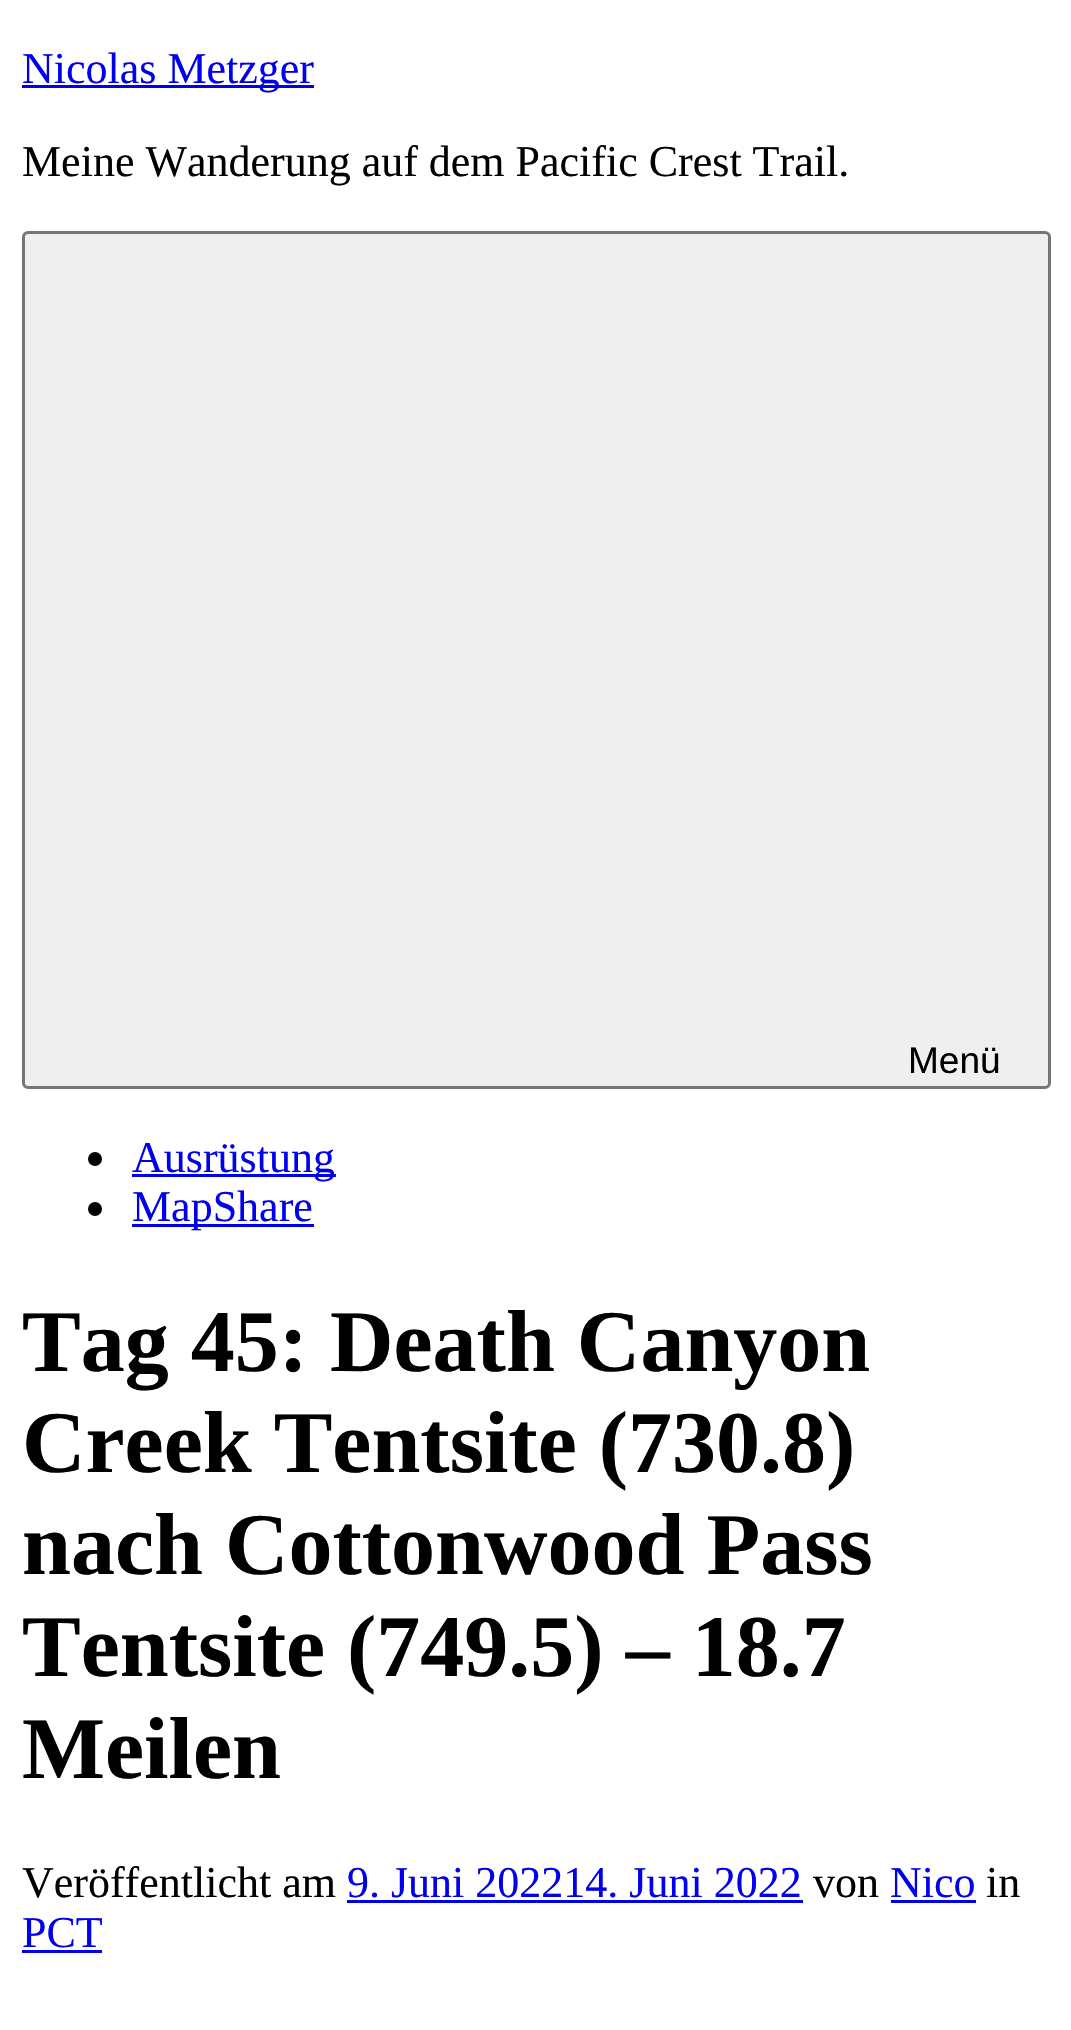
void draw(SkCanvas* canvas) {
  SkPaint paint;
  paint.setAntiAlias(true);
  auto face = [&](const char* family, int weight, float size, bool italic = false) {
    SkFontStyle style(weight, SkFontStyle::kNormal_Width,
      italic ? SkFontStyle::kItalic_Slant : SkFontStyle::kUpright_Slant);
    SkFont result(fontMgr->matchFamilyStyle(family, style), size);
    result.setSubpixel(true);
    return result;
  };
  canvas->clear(0xffffffff);
  paint.setColor(0xff0000ee);
  canvas->drawRect(SkRect::MakeXYWH(22, 85, 292, 3), paint);
  paint.setColor(0xffefefef);
  canvas->drawRoundRect(SkRect::MakeXYWH(23.5f, 232.5f, 1026, 855), 4.5f, 4.5f, paint);
  paint.setStroke(true);
  paint.setStrokeWidth(3);
  paint.setColor(0xff767676);
  canvas->drawRoundRect(SkRect::MakeXYWH(23.5f, 232.5f, 1026, 855), 4.5f, 4.5f, paint);
  paint.setStroke(false);
  paint.setColor(0xff000000);
  canvas->drawCircle(95, 1159, 7, paint);
  paint.setColor(0xff0000ee);
  canvas->drawRect(SkRect::MakeXYWH(132, 1174, 204, 3), paint);
  paint.setColor(0xff000000);
  canvas->drawCircle(95, 1209, 7, paint);
  {
    const struct { float x, y, w, h; SkColor color; } items[] = {
      {132, 1224, 182, 3, 0xff0000ee},
      {347, 1900, 456, 3, 0xff0000ee},
      {891, 1900, 85, 3, 0xff0000ee},
      {22, 1950, 80, 3, 0xff0000ee},
    };
    for (auto [x, y, w, h, color] : items) {
      paint.setColor(color);
      canvas->drawRect(SkRect::MakeXYWH(x, y, w, h), paint);
    }
  }
  auto f0 = face("Liberation Serif", 400, 44);
  canvas->drawString("Nicolas Metzger", 22, 83, f0, paint);
  paint.setColor(0xff000000);
  canvas->drawString("Meine Wanderung auf dem Pacific Crest Trail.", 22, 176, f0, paint);
  auto f1 = face("Liberation Sans", 400, 37);
  canvas->drawString("Menü", 908, 1073, f1, paint);
  paint.setColor(0xff0000ee);
  canvas->drawString("Ausrüstung", 132, 1172, f0, paint);
  canvas->drawString("MapShare", 132, 1221, f0, paint);
  auto f2 = face("Liberation Serif", 700, 88);
  paint.setColor(0xff000000);
  {
    const struct { const char* s; float x, y; } items[] = {
      {"Tag 45: Death Canyon", 22, 1371},
      {"Creek Tentsite (730.8)", 22, 1472},
      {"nach Cottonwood Pass", 22, 1574},
      {"Tentsite (749.5) – 18.7", 22, 1676},
      {"Meilen", 22, 1778},
    };
    for (auto [s, x, y] : items) {
      canvas->drawString(s, x, y, f2, paint);
    }
  }
  canvas->drawString("Veröffentlicht am", 22, 1897, f0, paint);
  paint.setColor(0xff0000ee);
  canvas->drawString("9. Juni 202214. Juni 2022", 347, 1897, f0, paint);
  paint.setColor(0xff000000);
  canvas->drawString("von", 813, 1897, f0, paint);
  paint.setColor(0xff0000ee);
  canvas->drawString("Nico", 890, 1897, f0, paint);
  paint.setColor(0xff000000);
  canvas->drawString("in", 986, 1897, f0, paint);
  paint.setColor(0xff0000ee);
  canvas->drawString("PCT", 22, 1947, f0, paint);
}
